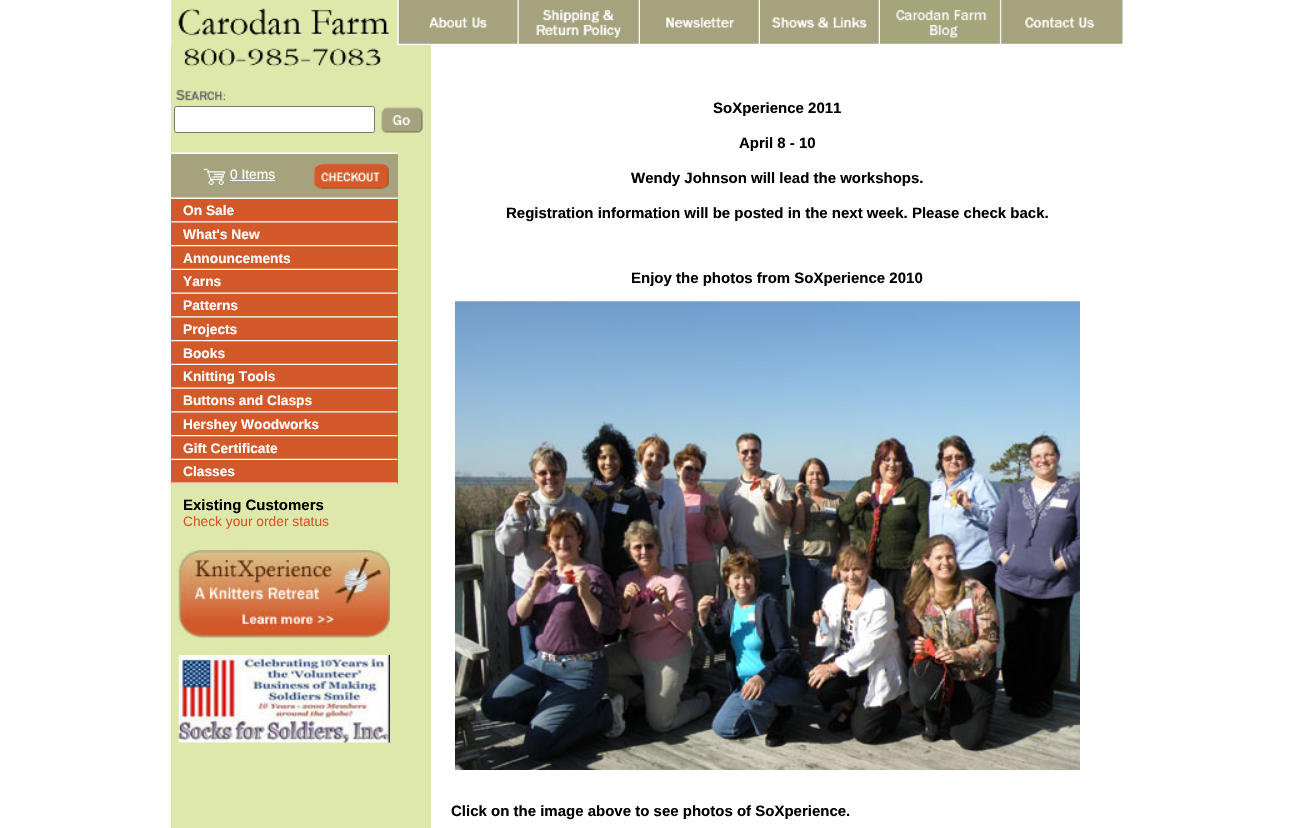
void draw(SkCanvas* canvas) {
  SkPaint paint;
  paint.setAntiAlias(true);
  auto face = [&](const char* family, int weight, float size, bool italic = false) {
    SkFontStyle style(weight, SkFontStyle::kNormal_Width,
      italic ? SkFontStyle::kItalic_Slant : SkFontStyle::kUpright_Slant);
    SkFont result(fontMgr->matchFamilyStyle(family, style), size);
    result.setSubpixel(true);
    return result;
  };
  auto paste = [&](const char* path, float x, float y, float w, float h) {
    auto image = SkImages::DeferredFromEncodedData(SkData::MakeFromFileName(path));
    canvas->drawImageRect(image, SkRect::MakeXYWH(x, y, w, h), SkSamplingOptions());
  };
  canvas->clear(0xffffffff);
  paste("img/1.png", 171, 0, 227, 45);
  paste("img/2.png", 397, 0, 121, 45);
  paste("img/3.png", 518, 0, 121, 44);
  paste("img/4.png", 640, 0, 119, 44);
  paste("img/5.png", 760, 0, 119, 44);
  paste("img/6.png", 880, 0, 121, 44);
  paste("img/7.png", 1001, 0, 122, 44);
  paint.setColor(0xffdfe8ab);
  canvas->drawRect(SkRect::MakeXYWH(171, 45, 260, 783), paint);
  paste("img/8.png", 184, 48, 198, 19);
  paste("img/9.png", 176, 89, 50, 12);
  paint.setColor(0xffffffff);
  canvas->drawRoundRect(SkRect::MakeXYWH(174.5f, 106.5f, 200, 26), 2, 2, paint);
  paint.setStroke(true);
  paint.setStrokeWidth(1);
  paint.setColor(0xff767676);
  canvas->drawRoundRect(SkRect::MakeXYWH(174.5f, 106.5f, 200, 26), 2, 2, paint);
  paste("img/10.png", 381, 107, 42, 26);
  paste("img/11.png", 171, 152, 227, 2);
  paint.setStroke(false);
  paint.setColor(0xffa5a37d);
  canvas->drawRect(SkRect::MakeXYWH(171, 154, 227, 44), paint);
  paste("img/12.png", 203, 168, 23, 17);
  paint.setColor(0xffffffff);
  canvas->drawRect(SkRect::MakeXYWH(230, 180, 45, 1), paint);
  paste("img/13.png", 313, 163, 76, 26);
  paste("img/14.png", 171, 197, 227, 2);
  paint.setColor(0xffd3592a);
  canvas->drawRect(SkRect::MakeXYWH(171, 199, 227, 285), paint);
  paste("img/15.png", 171, 221, 227, 2);
  paste("img/16.png", 171, 245, 227, 2);
  paste("img/17.png", 171, 268, 227, 2);
  paste("img/18.png", 171, 292, 227, 2);
  paste("img/15.png", 171, 316, 227, 2);
  paste("img/16.png", 171, 340, 227, 2);
  paste("img/17.png", 171, 363, 227, 2);
  paste("img/18.png", 171, 387, 227, 2);
  paste("img/15.png", 171, 411, 227, 2);
  paste("img/16.png", 171, 435, 227, 2);
  paste("img/17.png", 171, 458, 227, 2);
  paste("img/18.png", 171, 482, 227, 2);
  paste("img/19.png", 178, 550, 212, 88);
  paste("img/20.png", 178, 655, 212, 88);
  paste("img/21.png", 455, 301, 625, 469);
  auto f0 = face("Liberation Sans", 400, 13.75f);
  paint.setColor(0xffffffff);
  canvas->drawString("0 Items", 230, 179, f0, paint);
  auto f1 = face("Liberation Sans", 700, 13.75f);
  {
    const struct { const char* s; float x, y; } items[] = {
      {"On Sale", 183, 215},
      {"What's New", 183, 239},
      {"Announcements", 183, 263},
      {"Yarns", 183, 286},
      {"Patterns", 183, 310},
      {"Projects", 183, 334},
      {"Books", 183, 358},
      {"Knitting Tools", 183, 381},
      {"Buttons and Clasps", 183, 405},
      {"Hershey Woodworks", 183, 429},
      {"Gift Certificate", 183, 453},
      {"Classes", 183, 476},
    };
    for (auto [s, x, y] : items) {
      canvas->drawString(s, x, y, f1, paint);
    }
  }
  auto f2 = face("Liberation Sans", 700, 15);
  paint.setColor(0xff000000);
  canvas->drawString("Existing Customers", 183, 510, f2, paint);
  paint.setColor(0xffd3592a);
  canvas->drawString("Check your order status", 183, 526, f0, paint);
  paint.setColor(0xff000000);
  {
    const struct { const char* s; float x, y; } items[] = {
      {"SoXperience 2011", 713, 113},
      {"April 8 - 10", 739, 148},
      {"Wendy Johnson will lead the workshops.", 631, 183},
      {"Registration information will be posted in the next week. Please check back.", 506, 218},
      {"Enjoy the photos from SoXperience 2010", 631, 283},
      {"Click on the image above to see photos of SoXperience.", 451, 816},
    };
    for (auto [s, x, y] : items) {
      canvas->drawString(s, x, y, f2, paint);
    }
  }
}
